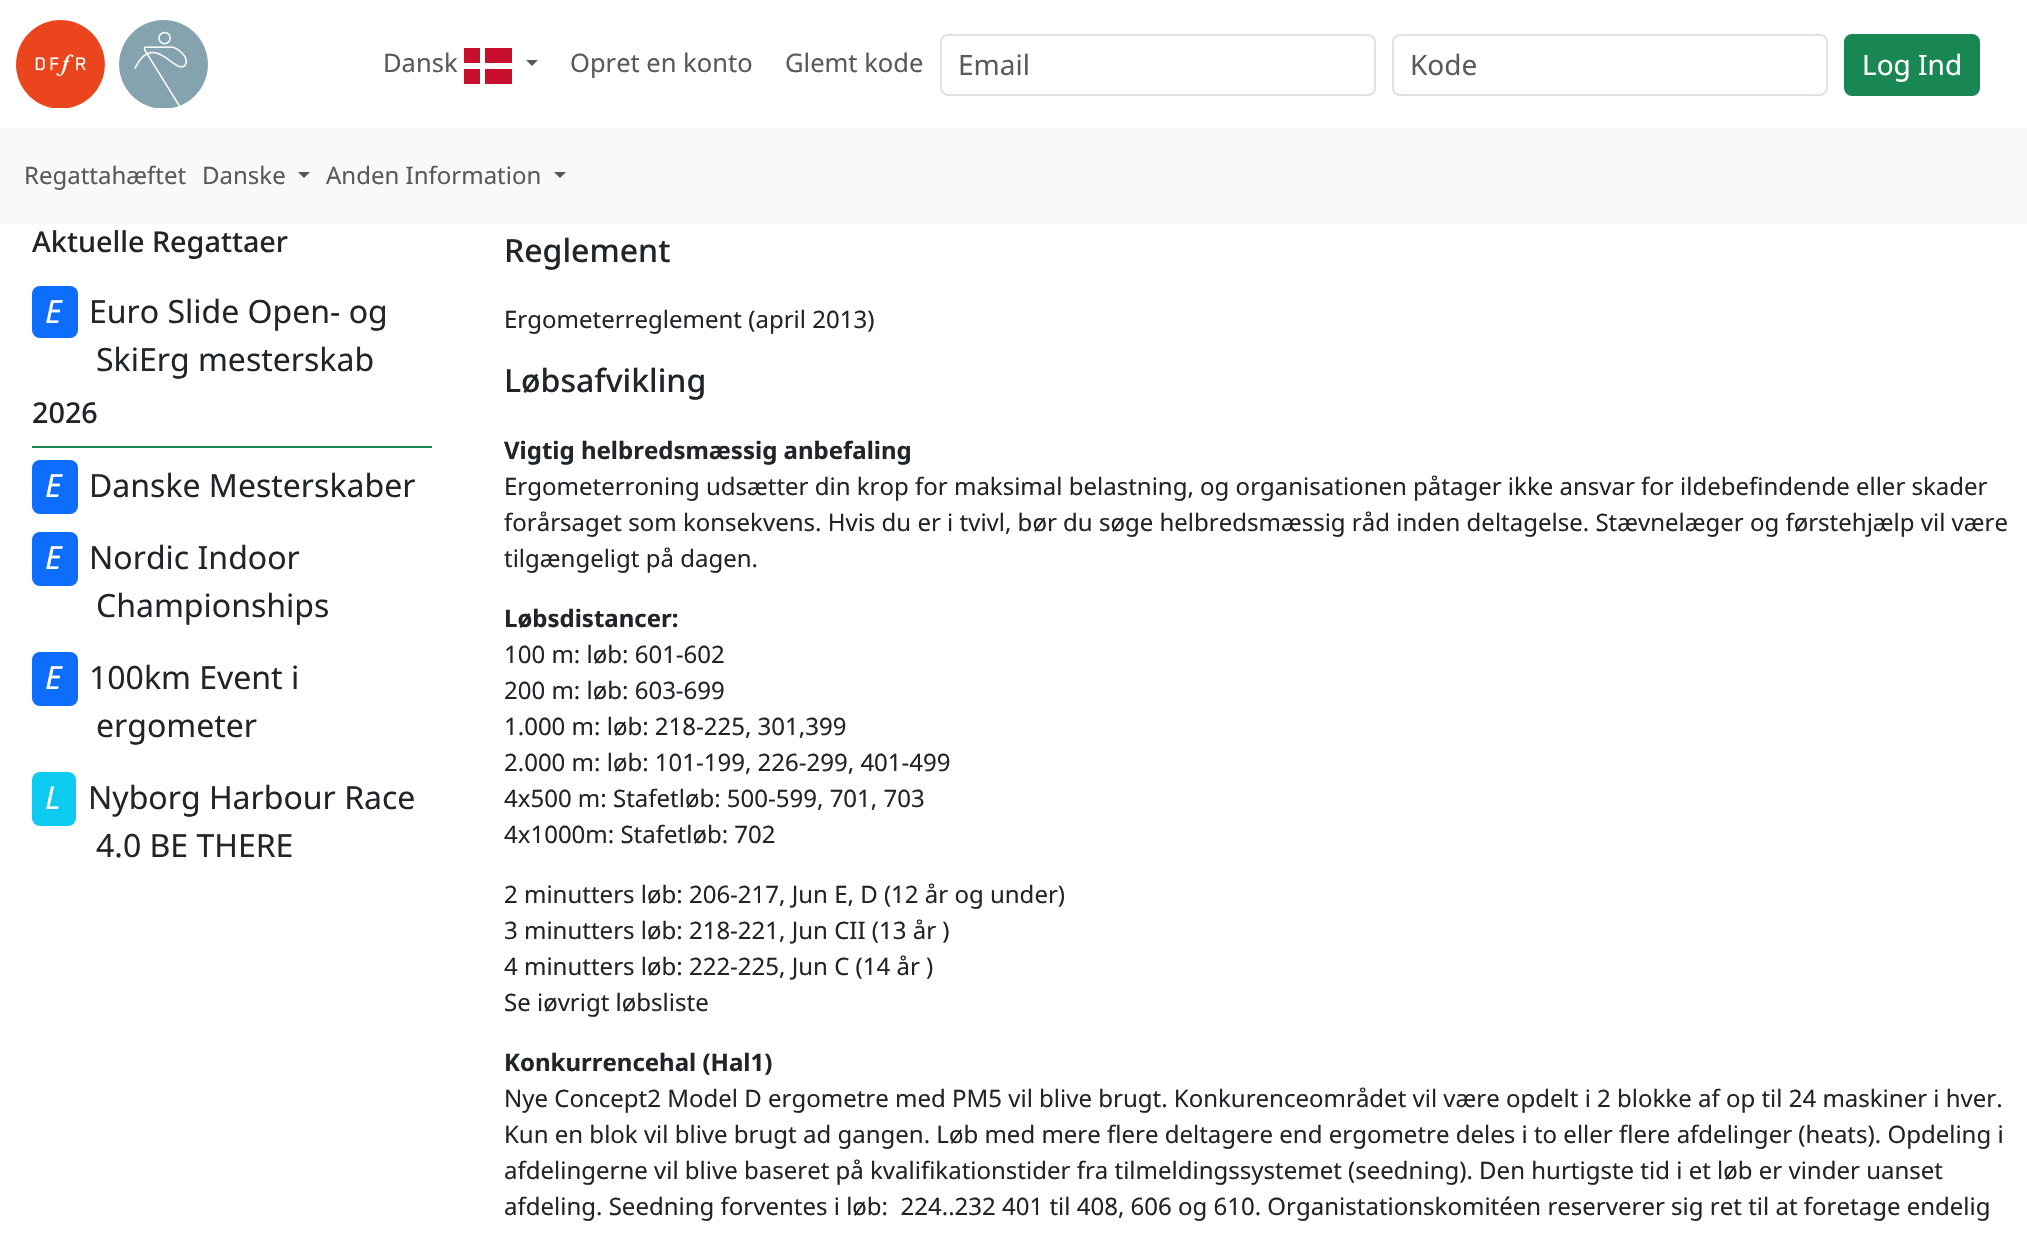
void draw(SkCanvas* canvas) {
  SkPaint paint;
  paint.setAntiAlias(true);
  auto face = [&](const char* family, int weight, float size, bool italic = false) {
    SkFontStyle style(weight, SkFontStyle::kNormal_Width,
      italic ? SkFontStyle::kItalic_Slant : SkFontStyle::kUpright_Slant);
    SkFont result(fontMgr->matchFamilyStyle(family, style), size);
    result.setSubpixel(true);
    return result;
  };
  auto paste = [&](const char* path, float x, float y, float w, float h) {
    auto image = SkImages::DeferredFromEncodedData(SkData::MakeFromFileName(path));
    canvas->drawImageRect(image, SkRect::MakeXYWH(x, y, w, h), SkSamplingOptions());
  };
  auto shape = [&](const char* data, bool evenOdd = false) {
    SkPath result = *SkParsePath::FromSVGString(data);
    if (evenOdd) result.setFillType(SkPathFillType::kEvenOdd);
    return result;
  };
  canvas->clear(0xffffffff);
  paste("img/1.png", 16, 20, 192, 88);
  paint.setColor(0xffc8102e);
  canvas->drawRect(SkRect::MakeXYWH(464, 48, 48, 36), paint);
  paint.setColor(0xffffffff);
  canvas->drawRect(SkRect::MakeXYWH(480, 48, 5, 36), paint);
  paint.setColor(0xff595959);
  canvas->drawPath(shape("M526 60H538L532 66Z"), paint);
  paint.setColor(0xffffffff);
  canvas->drawRect(SkRect::MakeXYWH(464, 63, 48, 6), paint);
  paint.setStroke(true);
  paint.setStrokeWidth(2);
  paint.setColor(0xffdee2e6);
  canvas->drawRoundRect(SkRect::MakeXYWH(941, 35, 434, 60), 7, 7, paint);
  canvas->drawRoundRect(SkRect::MakeXYWH(1393, 35, 434, 60), 7, 7, paint);
  paint.setStroke(false);
  paint.setColor(0xff198754);
  canvas->drawRoundRect(SkRect::MakeXYWH(1845, 35, 134, 60), 7, 7, paint);
  paint.setStroke(true);
  canvas->drawRoundRect(SkRect::MakeXYWH(1845, 35, 134, 60), 7, 7, paint);
  paint.setStroke(false);
  paint.setColor(0xfff8f9fa);
  canvas->drawRect(SkRect::MakeXYWH(0, 128, 2027, 96), paint);
  paint.setColor(0xff575758);
  canvas->drawPath(shape("M298 172H310L304 178Z"), paint);
  canvas->drawPath(shape("M554 172H566L560 178Z"), paint);
  paint.setColor(0xff0d6efd);
  canvas->drawRoundRect(SkRect::MakeXYWH(32, 286, 46, 52), 8, 8, paint);
  paint.setColor(0xff198754);
  canvas->drawRect(SkRect::MakeXYWH(32, 446, 400, 2), paint);
  paint.setColor(0xff0d6efd);
  canvas->drawRoundRect(SkRect::MakeXYWH(32, 460, 46, 54), 8, 8, paint);
  canvas->drawRoundRect(SkRect::MakeXYWH(32, 532, 46, 54), 8, 8, paint);
  canvas->drawRoundRect(SkRect::MakeXYWH(32, 652, 46, 54), 8, 8, paint);
  paint.setColor(0xff0dcaf0);
  canvas->drawRoundRect(SkRect::MakeXYWH(32, 772, 44, 54), 8, 8, paint);
  auto f0 = face("Noto Sans", 400, 25.5f);
  paint.setColor(0xff595959);
  {
    const struct { const char* s; float x, y; } items[] = {
      {"Dansk", 383, 72},
      {"Opret en konto", 570, 72},
      {"Glemt kode", 785, 72},
    };
    for (auto [s, x, y] : items) {
      canvas->drawString(s, x, y, f0, paint);
    }
  }
  auto f1 = face("Noto Sans", 400, 28);
  paint.setColor(0xff595c5f);
  canvas->drawString("Email", 958, 75, f1, paint);
  canvas->drawString("Kode", 1410, 75, f1, paint);
  paint.setColor(0xffffffff);
  canvas->drawString("Log Ind", 1862, 75, f1, paint);
  auto f2 = face("Noto Sans", 400, 24);
  paint.setColor(0xff595959);
  {
    const struct { const char* s; float x, y; } items[] = {
      {"Regattahæftet", 24, 184},
      {"Danske", 202, 184},
      {"Anden Information", 326, 184},
    };
    for (auto [s, x, y] : items) {
      canvas->drawString(s, x, y, f2, paint);
    }
  }
  auto f3 = face("Noto Sans", 500, 28.75f);
  paint.setColor(0xff212529);
  canvas->drawString("Aktuelle Regattaer", 32, 252, f3, paint);
  auto f4 = face("Noto Sans", 400, 32, true);
  paint.setColor(0xffffffff);
  canvas->drawString("E", 45, 323, f4, paint);
  auto f5 = face("Noto Sans", 400, 32);
  paint.setColor(0xff212529);
  canvas->drawString("Euro Slide Open- og", 89, 323, f5, paint);
  canvas->drawString("SkiErg mesterskab", 96, 371, f5, paint);
  canvas->drawString("2026", 32, 423, f3, paint);
  paint.setColor(0xffffffff);
  canvas->drawString("E", 45, 497, f4, paint);
  paint.setColor(0xff212529);
  canvas->drawString("Danske Mesterskaber", 89, 497, f5, paint);
  paint.setColor(0xffffffff);
  canvas->drawString("E", 45, 569, f4, paint);
  paint.setColor(0xff212529);
  canvas->drawString("Nordic Indoor", 89, 569, f5, paint);
  canvas->drawString("Championships", 96, 617, f5, paint);
  paint.setColor(0xffffffff);
  canvas->drawString("E", 45, 689, f4, paint);
  paint.setColor(0xff212529);
  canvas->drawString("100km Event i", 89, 689, f5, paint);
  canvas->drawString("ergometer", 96, 737, f5, paint);
  paint.setColor(0xffffffff);
  canvas->drawString("L", 45, 809, f4, paint);
  paint.setColor(0xff212529);
  canvas->drawString("Nyborg Harbour Race", 88, 809, f5, paint);
  canvas->drawString("4.0 BE THERE", 96, 857, f5, paint);
  auto f6 = face("Noto Sans", 500, 32);
  canvas->drawString("Reglement", 504, 262, f6, paint);
  canvas->drawString("Ergometerreglement (april 2013)", 504, 328, f2, paint);
  canvas->drawString("Løbsafvikling", 504, 392, f6, paint);
  auto f7 = face("Noto Sans", 700, 24);
  canvas->drawString("Vigtig helbredsmæssig anbefaling", 504, 459, f7, paint);
  {
    const struct { const char* s; float x, y; } items[] = {
      {"Ergometerroning udsætter din krop for maksimal belastning, og organisationen påtager ikke ansvar for ildebefindende eller skader", 504, 495},
      {"forårsaget som konsekvens. Hvis du er i tvivl, bør du søge helbredsmæssig råd inden deltagelse. Stævnelæger og førstehjælp vil være", 504, 531},
      {"tilgængeligt på dagen.", 504, 567},
    };
    for (auto [s, x, y] : items) {
      canvas->drawString(s, x, y, f2, paint);
    }
  }
  canvas->drawString("Løbsdistancer:", 504, 627, f7, paint);
  {
    const struct { const char* s; float x, y; } items[] = {
      {"100 m: løb: 601-602", 504, 663},
      {"200 m: løb: 603-699", 504, 699},
      {"1.000 m: løb: 218-225, 301,399", 504, 735},
      {"2.000 m: løb: 101-199, 226-299, 401-499", 504, 771},
      {"4x500 m: Stafetløb: 500-599, 701, 703", 504, 807},
      {"4x1000m: Stafetløb: 702", 504, 843},
      {"2 minutters løb: 206-217, Jun E, D (12 år og under)", 504, 903},
      {"3 minutters løb: 218-221, Jun CII (13 år )", 504, 939},
      {"4 minutters løb: 222-225, Jun C (14 år )", 504, 975},
      {"Se iøvrigt løbsliste", 504, 1011},
    };
    for (auto [s, x, y] : items) {
      canvas->drawString(s, x, y, f2, paint);
    }
  }
  canvas->drawString("Konkurrencehal (Hal1)", 504, 1071, f7, paint);
  {
    const struct { const char* s; float x, y; } items[] = {
      {"Nye Concept2 Model D ergometre med PM5 vil blive brugt. Konkurenceområdet vil være opdelt i 2 blokke af op til 24 maskiner i hver.", 504, 1107},
      {"Kun en blok vil blive brugt ad gangen. Løb med mere flere deltagere end ergometre deles i to eller flere afdelinger (heats). Opdeling i", 504, 1143},
      {"afdelingerne vil blive baseret på kvalifikationstider fra tilmeldingssystemet (seedning). Den hurtigste tid i et løb er vinder uanset", 504, 1179},
      {"afdeling. Seedning forventes i løb:  224..232 401 til 408, 606 og 610. Organistationskomitéen reserverer sig ret til at foretage endelig", 504, 1215},
    };
    for (auto [s, x, y] : items) {
      canvas->drawString(s, x, y, f2, paint);
    }
  }
}
